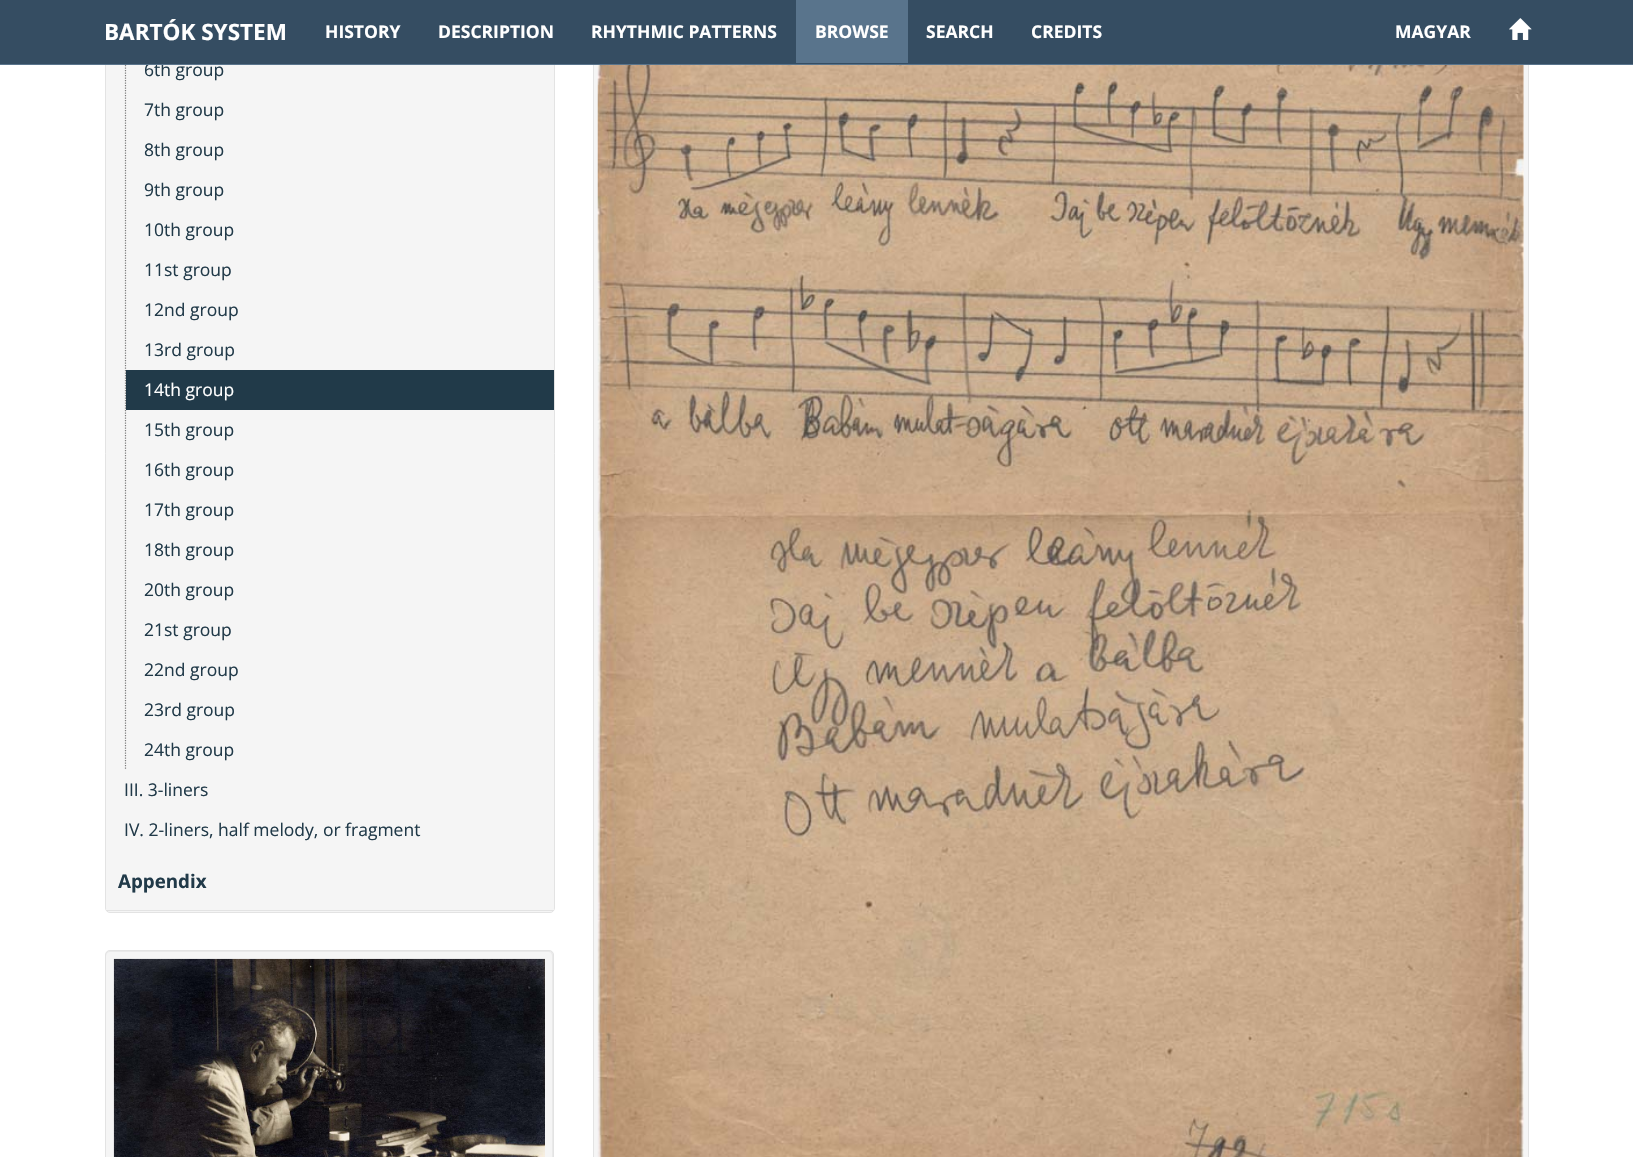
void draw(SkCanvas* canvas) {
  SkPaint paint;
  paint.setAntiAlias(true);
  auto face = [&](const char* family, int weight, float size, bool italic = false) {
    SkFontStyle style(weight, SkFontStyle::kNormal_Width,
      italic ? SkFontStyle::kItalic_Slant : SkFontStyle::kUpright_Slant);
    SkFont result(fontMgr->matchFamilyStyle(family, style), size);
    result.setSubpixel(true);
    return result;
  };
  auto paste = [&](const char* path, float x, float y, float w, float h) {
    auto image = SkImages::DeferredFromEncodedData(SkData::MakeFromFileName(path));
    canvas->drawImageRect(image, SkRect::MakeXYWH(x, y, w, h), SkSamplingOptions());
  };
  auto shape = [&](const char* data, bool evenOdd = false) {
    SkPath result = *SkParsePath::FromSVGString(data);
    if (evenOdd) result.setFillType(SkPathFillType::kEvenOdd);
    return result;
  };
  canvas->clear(0xffffffff);
  paint.setColor(0xfff5f5f5);
  canvas->drawRoundRect(SkRect::MakeXYWH(105.5f, -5.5f, 449, 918), 4.5f, 4.5f, paint);
  paint.setStroke(true);
  paint.setStrokeWidth(1);
  paint.setColor(0xffe3e3e3);
  canvas->drawRoundRect(SkRect::MakeXYWH(105.5f, -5.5f, 449, 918), 4.5f, 4.5f, paint);
  paint.setStrokeWidth(1.2f);
  paint.setColor(0xff7b7b7b);
  paint.setPathEffect(SkDashPathEffect::Make({{1.25f, 1.25f}}, 0));
  canvas->drawPath(shape("M125.5-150V770"), paint);
  paint.setPathEffect(nullptr);
  paint.setStroke(false);
  {
    const struct { float x, y, w, h; SkColor color; } items[] = {
      {126, 370, 428, 40, 0xff213a49},
      {106, 909, 448, 1, 0xfff5f5f5},
      {106, 910, 448, 1, 0xffe3e3e3},
    };
    for (auto [x, y, w, h, color] : items) {
      paint.setColor(color);
      canvas->drawRect(SkRect::MakeXYWH(x, y, w, h), paint);
    }
  }
  paint.setColor(0xfff5f5f5);
  canvas->drawRoundRect(SkRect::MakeXYWH(105, 950, 449, 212), 5, 5, paint);
  paint.setColor(0xffe9e9e9);
  canvas->drawPath(shape("M110 952H549C551 952 552 954 552 956V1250C553 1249 553 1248 553 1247V955C553 953 551 951 549 951H110C108 951 106 953 106 955V956C106 954 108 952 110 952Z"), paint);
  paint.setStroke(true);
  paint.setStrokeWidth(1);
  paint.setColor(0xffe3e3e3);
  canvas->drawRoundRect(SkRect::MakeXYWH(105.5f, 950.5f, 448, 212), 4.5f, 4.5f, paint);
  paste("img/2.png", 113, 958, 432, 199);
  paint.setStroke(false);
  paint.setColor(0xfff5f5f5);
  canvas->drawRect(SkRect::MakeXYWH(594, 65, 934, 1092), paint);
  paint.setStroke(true);
  paint.setColor(0xffe3e3e3);
  canvas->drawRect(SkRect::MakeXYWH(593.5f, -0.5f, 935, 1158), paint);
  paste("img/3.png", 597, 65, 927, 1092);
  auto f0 = face("Open Sans", 400, 17.5f);
  paint.setStroke(false);
  paint.setColor(0xff213a49);
  canvas->drawString("6th group", 144, 76, f0, paint);
  paint.setColor(0xff354d62);
  canvas->drawRect(SkRect::MakeXYWH(0, 0, 1633, 64), paint);
  paste("img/1.png", 1509, 18, 23, 22);
  auto f1 = face("Open Sans", 700, 17.5f);
  paint.setColor(0xffffffff);
  {
    const struct { const char* s; float x, y; } items[] = {
      {"MAGYAR", 1395, 38},
      {"CREDITS", 1031, 38},
      {"SEARCH", 926, 38},
    };
    for (auto [s, x, y] : items) {
      canvas->drawString(s, x, y, f1, paint);
    }
  }
  paint.setColor(0xff59748c);
  canvas->drawRect(SkRect::MakeXYWH(796, 0, 112, 63), paint);
  paint.setColor(0xffffffff);
  {
    const struct { const char* s; float x, y; } items[] = {
      {"BROWSE", 815, 38},
      {"RHYTHMIC PATTERNS", 591, 38},
      {"DESCRIPTION", 438, 38},
      {"HISTORY", 325, 38},
    };
    for (auto [s, x, y] : items) {
      canvas->drawString(s, x, y, f1, paint);
    }
  }
  auto f2 = face("Open Sans", 700, 22.5f);
  canvas->drawString("BARTÓK SYSTEM", 104, 40, f2, paint);
  paint.setColor(0xff59748c);
  canvas->drawRect(SkRect::MakeXYWH(0, 64, 1633, 1), paint);
  paint.setColor(0xff213a49);
  {
    const struct { const char* s; float x, y; } items[] = {
      {"7th group", 144, 116},
      {"8th group", 144, 156},
      {"9th group", 144, 196},
      {"10th group", 144, 236},
      {"11st group", 144, 276},
      {"12nd group", 144, 316},
      {"13rd group", 144, 356},
    };
    for (auto [s, x, y] : items) {
      canvas->drawString(s, x, y, f0, paint);
    }
  }
  paint.setColor(0xffffffff);
  canvas->drawString("14th group", 144, 396, f0, paint);
  paint.setColor(0xff213a49);
  {
    const struct { const char* s; float x, y; } items[] = {
      {"15th group", 144, 436},
      {"16th group", 144, 476},
      {"17th group", 144, 516},
      {"18th group", 144, 556},
      {"20th group", 144, 596},
      {"21st group", 144, 636},
      {"22nd group", 144, 676},
      {"23rd group", 144, 716},
      {"24th group", 144, 756},
      {"III. 3-liners", 124, 796},
      {"IV. 2-liners, half melody, or fragment", 124, 836},
    };
    for (auto [s, x, y] : items) {
      canvas->drawString(s, x, y, f0, paint);
    }
  }
  auto f3 = face("Open Sans", 700, 18.75f);
  canvas->drawString("Appendix", 118, 888, f3, paint);
}
